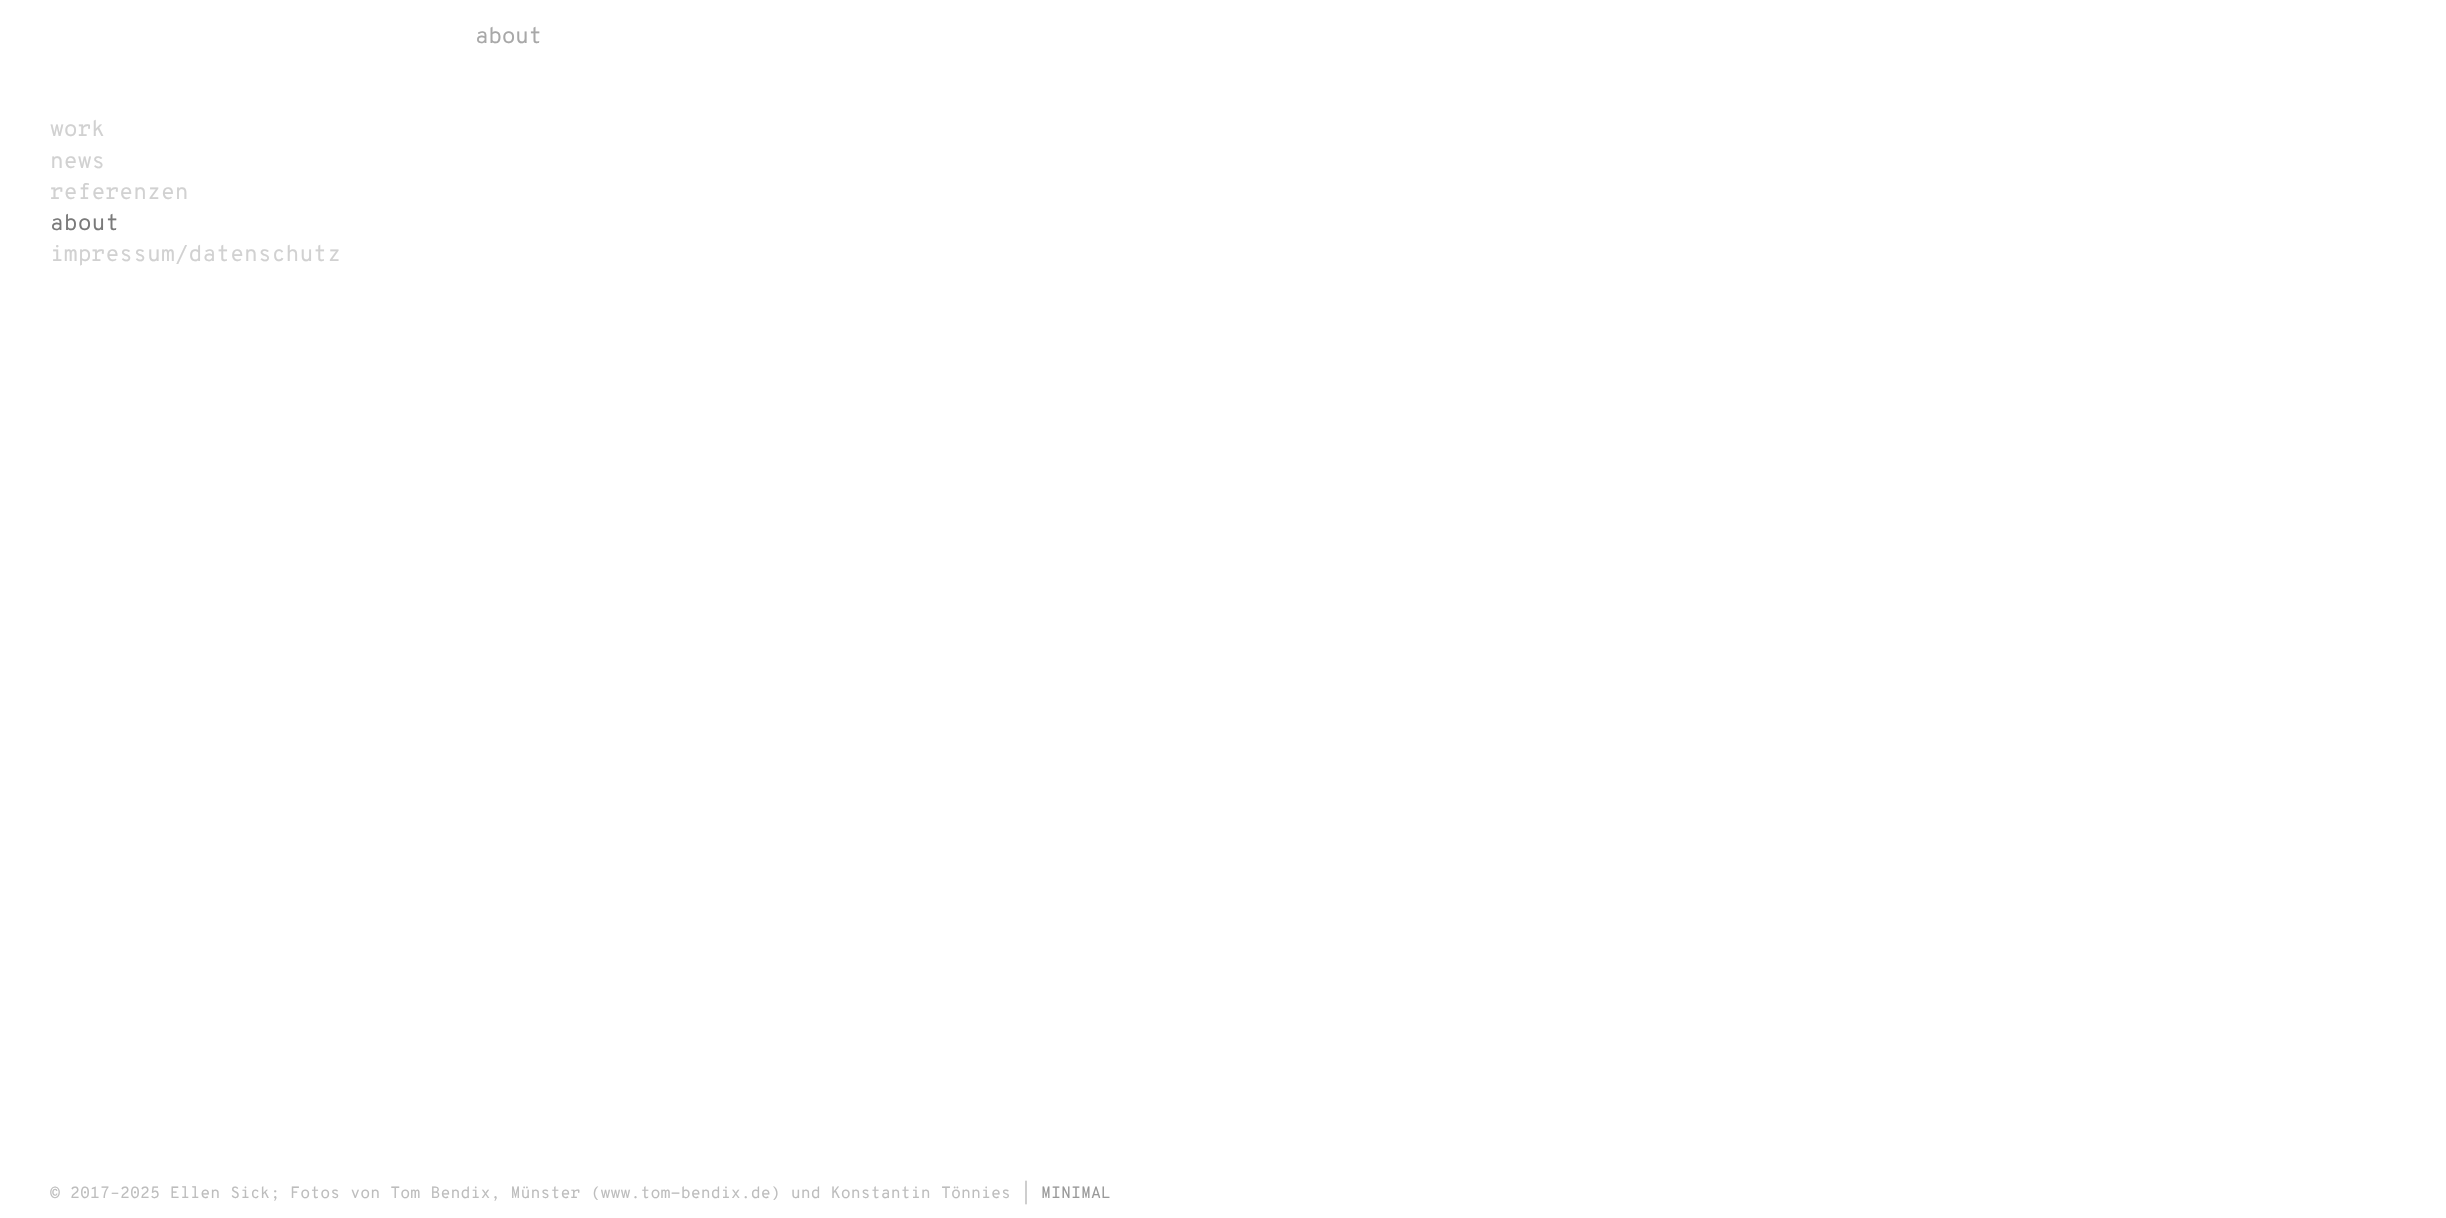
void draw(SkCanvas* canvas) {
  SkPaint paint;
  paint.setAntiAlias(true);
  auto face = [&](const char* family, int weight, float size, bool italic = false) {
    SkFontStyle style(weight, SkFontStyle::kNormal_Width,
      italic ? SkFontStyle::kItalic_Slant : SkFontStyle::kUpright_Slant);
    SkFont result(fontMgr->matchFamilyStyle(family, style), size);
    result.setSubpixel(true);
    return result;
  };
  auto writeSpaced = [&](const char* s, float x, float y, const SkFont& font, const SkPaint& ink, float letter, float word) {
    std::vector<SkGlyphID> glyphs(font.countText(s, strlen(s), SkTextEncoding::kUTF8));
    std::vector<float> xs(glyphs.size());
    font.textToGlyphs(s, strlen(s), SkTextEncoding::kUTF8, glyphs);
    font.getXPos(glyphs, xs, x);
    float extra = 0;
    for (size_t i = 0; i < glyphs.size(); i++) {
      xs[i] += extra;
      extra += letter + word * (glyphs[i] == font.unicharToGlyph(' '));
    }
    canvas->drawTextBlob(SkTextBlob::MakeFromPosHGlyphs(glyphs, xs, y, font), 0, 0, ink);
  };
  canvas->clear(0xffffffff);
  auto f0 = face("Overpass Mono", 300, 22.5f);
  paint.setColor(0xffa8a8a8);
  writeSpaced("about", 475, 43, f0, paint, -0.5f, 0);
  paint.setColor(0xffd1d1d1);
  {
    const struct { const char* s; float x, y; } items[] = {
      {"work", 50, 136},
      {"news", 50, 168},
      {"referenzen", 50, 199},
    };
    for (auto [s, x, y] : items) {
      canvas->drawString(s, x, y, f0, paint);
    }
  }
  paint.setColor(0xff7a7a7a);
  canvas->drawString("about", 50, 230, f0, paint);
  paint.setColor(0xffd1d1d1);
  canvas->drawString("impressum/datenschutz", 50, 261, f0, paint);
  auto f1 = face("Overpass Mono", 300, 16.25f);
  paint.setColor(0xffbdbdbd);
  canvas->drawString("© 2017–2025 Ellen Sick; Fotos von Tom Bendix, Münster (www.tom-bendix.de) und Konstantin Tönnies |", 50, 1198, f1, paint);
  paint.setColor(0xff999999);
  canvas->drawString("MINIMAL", 1041, 1198, f1, paint);
}
